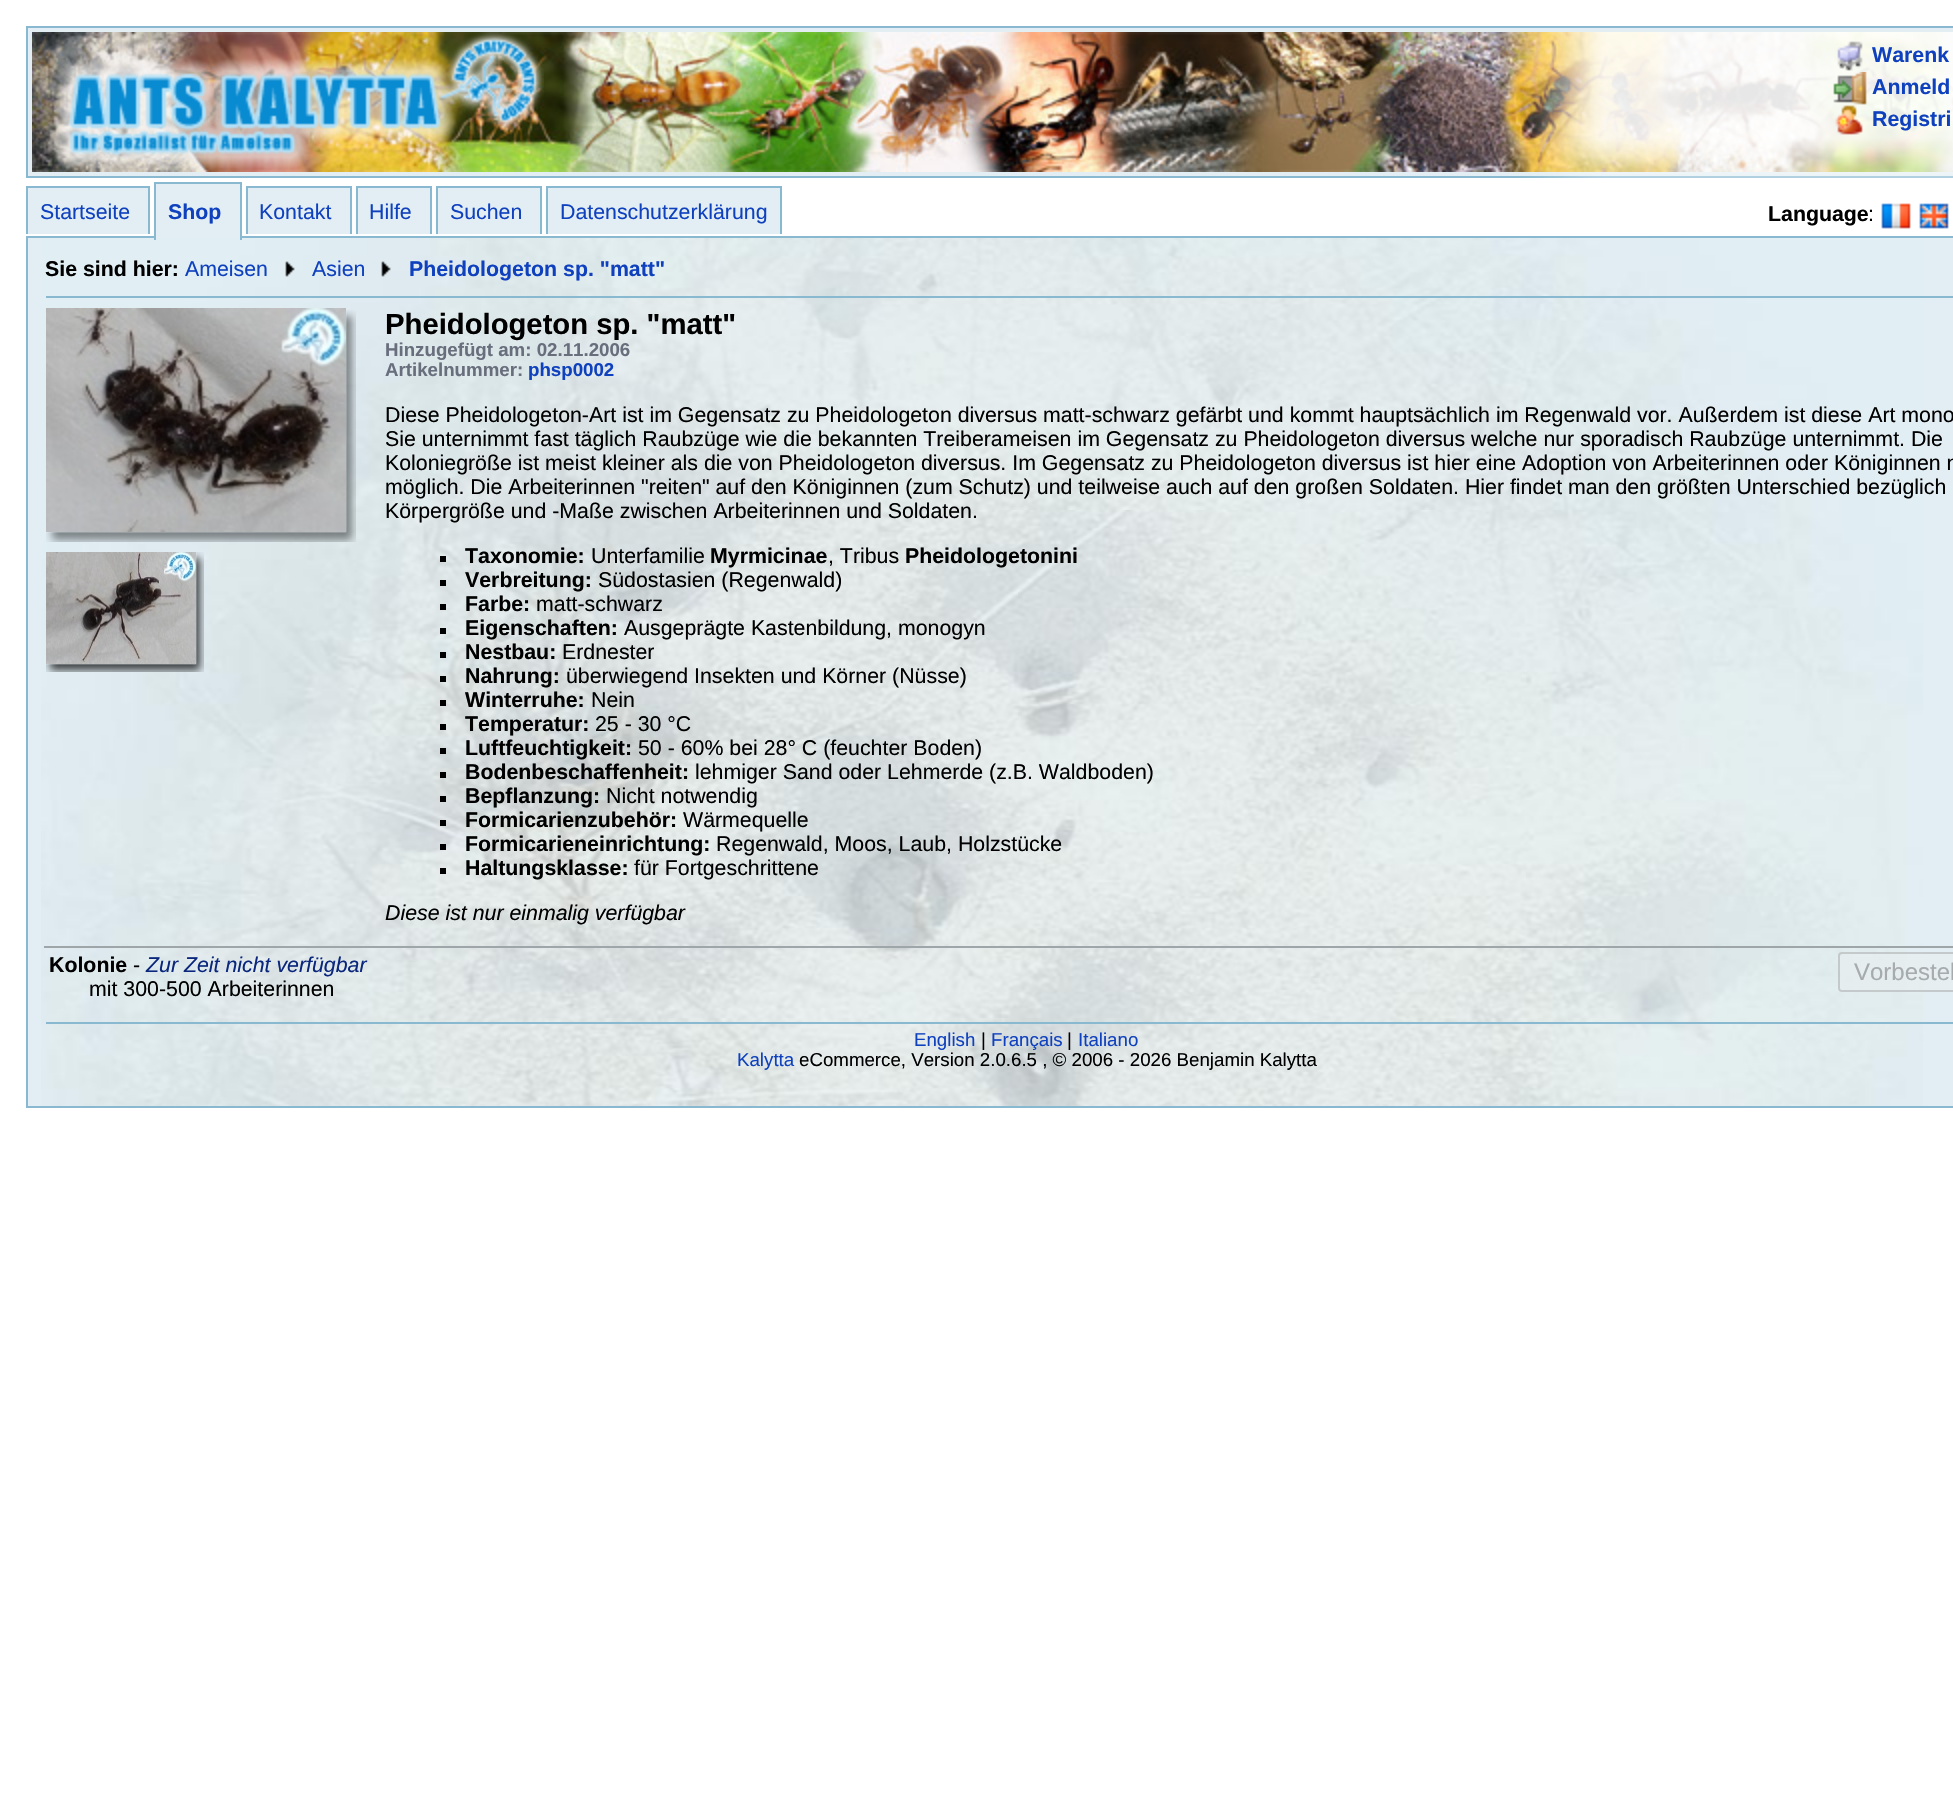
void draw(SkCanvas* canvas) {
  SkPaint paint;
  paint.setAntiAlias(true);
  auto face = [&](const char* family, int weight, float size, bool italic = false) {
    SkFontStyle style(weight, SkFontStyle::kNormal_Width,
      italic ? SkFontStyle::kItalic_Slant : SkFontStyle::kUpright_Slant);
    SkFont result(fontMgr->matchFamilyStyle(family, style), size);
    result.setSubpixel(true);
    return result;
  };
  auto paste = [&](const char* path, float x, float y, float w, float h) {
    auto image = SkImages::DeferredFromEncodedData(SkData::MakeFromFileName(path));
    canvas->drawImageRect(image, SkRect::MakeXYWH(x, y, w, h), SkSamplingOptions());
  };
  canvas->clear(0xffffffff);
  paint.setColor(0xffe2eef3);
  canvas->drawRect(SkRect::MakeXYWH(27, 27, 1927, 150), paint);
  paint.setStroke(true);
  paint.setStrokeWidth(2);
  paint.setColor(0xff89b9d0);
  canvas->drawRect(SkRect::MakeXYWH(27, 27, 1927, 150), paint);
  paste("img/1.png", 32, 32, 1921, 140);
  paste("img/2.png", 54, 32, 490, 138);
  paste("img/3.png", 1519, 32, 434, 146);
  paste("img/4.png", 1837, 41, 26, 30);
  paste("img/5.png", 1833, 72, 34, 33);
  paste("img/6.png", 1835, 105, 28, 30);
  paint.setStroke(false);
  {
    const struct { float x, y, w, h; SkColor color; } items[] = {
      {28, 188, 120, 46, 0xffe2eef3},
      {26, 186, 124, 2, 0xff89b9d0},
      {26, 186, 2, 48, 0xff89b9d0},
      {148, 186, 2, 48, 0xff89b9d0},
      {28, 238, 1925, 868, 0xffe2eef3},
    };
    for (auto [x, y, w, h, color] : items) {
      paint.setColor(color);
      canvas->drawRect(SkRect::MakeXYWH(x, y, w, h), paint);
    }
  }
  paste("img/9.png", 41, 238, 1882, 868);
  paint.setStroke(true);
  paint.setColor(0xff89b9d0);
  canvas->drawRect(SkRect::MakeXYWH(27, 237, 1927, 870), paint);
  paint.setStroke(false);
  {
    const struct { float x, y, w, h; SkColor color; } items[] = {
      {156, 184, 84, 54, 0xffe2eef3},
      {154, 182, 88, 2, 0xff89b9d0},
      {154, 182, 2, 58, 0xff89b9d0},
      {240, 182, 2, 58, 0xff89b9d0},
      {248, 188, 102, 46, 0xffe2eef3},
      {246, 186, 106, 2, 0xff89b9d0},
      {246, 186, 2, 48, 0xff89b9d0},
      {350, 186, 2, 48, 0xff89b9d0},
      {358, 188, 72, 46, 0xffe2eef3},
      {356, 186, 76, 2, 0xff89b9d0},
      {356, 186, 2, 48, 0xff89b9d0},
      {430, 186, 2, 48, 0xff89b9d0},
      {438, 188, 102, 46, 0xffe2eef3},
      {436, 186, 106, 2, 0xff89b9d0},
      {436, 186, 2, 48, 0xff89b9d0},
      {540, 186, 2, 48, 0xff89b9d0},
      {548, 188, 232, 46, 0xffe2eef3},
      {546, 186, 236, 2, 0xff89b9d0},
      {780, 186, 2, 48, 0xff89b9d0},
      {546, 186, 2, 48, 0xff89b9d0},
    };
    for (auto [x, y, w, h, color] : items) {
      paint.setColor(color);
      canvas->drawRect(SkRect::MakeXYWH(x, y, w, h), paint);
    }
  }
  paste("img/7.png", 1881, 203, 30, 26);
  paste("img/8.png", 1919, 203, 30, 26);
  canvas->drawRect(SkRect::MakeXYWH(46, 296, 1907, 2), paint);
  paste("img/10.png", 285, 261, 10, 16);
  paste("img/11.png", 381, 261, 10, 16);
  paste("img/12.png", 46, 310, 310, 232);
  paste("img/13.png", 46, 308, 300, 224);
  paste("img/14.png", 46, 552, 158, 120);
  paste("img/15.png", 46, 552, 150, 112);
  {
    const struct { float x, y, w, h; SkColor color; } items[] = {
      {440, 556, 6, 6, 0xff000000},
      {440, 580, 6, 6, 0xff000000},
      {440, 604, 6, 6, 0xff000000},
      {440, 628, 6, 6, 0xff000000},
      {440, 652, 6, 6, 0xff000000},
      {440, 676, 6, 6, 0xff000000},
      {440, 700, 6, 6, 0xff000000},
      {440, 724, 6, 6, 0xff000000},
      {440, 748, 6, 6, 0xff000000},
      {440, 772, 6, 6, 0xff000000},
      {440, 796, 6, 6, 0xff000000},
      {440, 820, 6, 6, 0xff000000},
      {440, 844, 6, 6, 0xff000000},
      {440, 868, 6, 6, 0xff000000},
      {44, 946, 1909, 2, 0xff9ea6a9},
    };
    for (auto [x, y, w, h, color] : items) {
      paint.setColor(color);
      canvas->drawRect(SkRect::MakeXYWH(x, y, w, h), paint);
    }
  }
  paint.setColor(0x4defefef);
  canvas->drawRoundRect(SkRect::MakeXYWH(1838, 952, 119, 40), 4, 4, paint);
  paint.setStroke(true);
  paint.setColor(0x4d767676);
  canvas->drawRoundRect(SkRect::MakeXYWH(1839, 953, 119, 38), 3, 3, paint);
  paint.setStroke(false);
  paint.setColor(0xff89b9d0);
  canvas->drawRect(SkRect::MakeXYWH(46, 1022, 1907, 2), paint);
  auto f0 = face("Liberation Sans", 700, 21.33f);
  paint.setColor(0xff0f41bf);
  {
    const struct { const char* s; float x, y; } items[] = {
      {"Warenk", 1872, 62},
      {"Anmeld", 1872, 94},
      {"Registri", 1872, 126},
    };
    for (auto [s, x, y] : items) {
      canvas->drawString(s, x, y, f0, paint);
    }
  }
  auto f1 = face("Liberation Sans", 400, 21.33f);
  canvas->drawString("Startseite", 40, 219, f1, paint);
  canvas->drawString("Shop", 168, 219, f0, paint);
  {
    const struct { const char* s; float x, y; } items[] = {
      {"Kontakt", 259, 219},
      {"Hilfe", 369, 219},
      {"Suchen", 450, 219},
      {"Datenschutzerklärung", 560, 219},
    };
    for (auto [s, x, y] : items) {
      canvas->drawString(s, x, y, f1, paint);
    }
  }
  paint.setColor(0xff000000);
  canvas->drawString("Language", 1768, 221, f0, paint);
  canvas->drawString(":", 1868, 221, f1, paint);
  canvas->drawString("Sie sind hier:", 45, 276, f0, paint);
  paint.setColor(0xff0f41bf);
  canvas->drawString("Ameisen", 185, 276, f1, paint);
  canvas->drawString("Asien", 312, 276, f1, paint);
  canvas->drawString("Pheidologeton sp. \"matt\"", 409, 276, f0, paint);
  auto f2 = face("Liberation Sans", 700, 29.25f);
  paint.setColor(0xff000000);
  canvas->drawString("Pheidologeton sp. \"matt\"", 385, 334, f2, paint);
  auto f3 = face("Liberation Sans", 700, 18.7f);
  paint.setColor(0xff696e7d);
  canvas->drawString("Hinzugefügt am: 02.11.2006", 385, 356, f3, paint);
  canvas->drawString("Artikelnummer:", 385, 376, f3, paint);
  paint.setColor(0xff0f41bf);
  canvas->drawString("phsp0002", 528, 376, f3, paint);
  paint.setColor(0xff000000);
  {
    const struct { const char* s; float x, y; } items[] = {
      {"Diese Pheidologeton-Art ist im Gegensatz zu Pheidologeton diversus matt-schwarz gefärbt und kommt hauptsächlich im Regenwald vor. Außerdem ist diese Art mono", 385, 422},
      {"Sie unternimmt fast täglich Raubzüge wie die bekannten Treiberameisen im Gegensatz zu Pheidologeton diversus welche nur sporadisch Raubzüge unternimmt. Die", 385, 446},
      {"Koloniegröße ist meist kleiner als die von Pheidologeton diversus. Im Gegensatz zu Pheidologeton diversus ist hier eine Adoption von Arbeiterinnen oder Königinnen n", 385, 470},
      {"möglich. Die Arbeiterinnen \"reiten\" auf den Königinnen (zum Schutz) und teilweise auch auf den großen Soldaten. Hier findet man den größten Unterschied bezüglich", 385, 494},
      {"Körpergröße und -Maße zwischen Arbeiterinnen und Soldaten.", 385, 518},
    };
    for (auto [s, x, y] : items) {
      canvas->drawString(s, x, y, f1, paint);
    }
  }
  canvas->drawString("Taxonomie:", 465, 563, f0, paint);
  canvas->drawString("Unterfamilie", 591, 563, f1, paint);
  canvas->drawString("Myrmicinae", 710, 563, f0, paint);
  canvas->drawString(", Tribus", 828, 563, f1, paint);
  canvas->drawString("Pheidologetonini", 905, 563, f0, paint);
  canvas->drawString("Verbreitung:", 465, 587, f0, paint);
  canvas->drawString("Südostasien (Regenwald)", 598, 587, f1, paint);
  canvas->drawString("Farbe:", 465, 611, f0, paint);
  canvas->drawString("matt-schwarz", 536, 611, f1, paint);
  canvas->drawString("Eigenschaften:", 465, 635, f0, paint);
  canvas->drawString("Ausgeprägte Kastenbildung, monogyn", 624, 635, f1, paint);
  canvas->drawString("Nestbau:", 465, 659, f0, paint);
  canvas->drawString("Erdnester", 562, 659, f1, paint);
  canvas->drawString("Nahrung:", 465, 683, f0, paint);
  canvas->drawString("überwiegend Insekten und Körner (Nüsse)", 566, 683, f1, paint);
  canvas->drawString("Winterruhe:", 465, 707, f0, paint);
  canvas->drawString("Nein", 591, 707, f1, paint);
  canvas->drawString("Temperatur:", 465, 731, f0, paint);
  canvas->drawString("25 - 30 °C", 595, 731, f1, paint);
  canvas->drawString("Luftfeuchtigkeit:", 465, 755, f0, paint);
  canvas->drawString("50 - 60% bei 28° C (feuchter Boden)", 638, 755, f1, paint);
  canvas->drawString("Bodenbeschaffenheit:", 465, 779, f0, paint);
  canvas->drawString("lehmiger Sand oder Lehmerde (z.B. Waldboden)", 695, 779, f1, paint);
  canvas->drawString("Bepflanzung:", 465, 803, f0, paint);
  canvas->drawString("Nicht notwendig", 606, 803, f1, paint);
  canvas->drawString("Formicarienzubehör:", 465, 827, f0, paint);
  canvas->drawString("Wärmequelle", 683, 827, f1, paint);
  canvas->drawString("Formicarieneinrichtung:", 465, 851, f0, paint);
  canvas->drawString("Regenwald, Moos, Laub, Holzstücke", 716, 851, f1, paint);
  canvas->drawString("Haltungsklasse:", 465, 875, f0, paint);
  canvas->drawString("für Fortgeschrittene", 634, 875, f1, paint);
  auto f4 = face("Liberation Sans", 400, 21.33f, true);
  canvas->drawString("Diese ist nur einmalig verfügbar", 385, 920, f4, paint);
  canvas->drawString("Kolonie", 49, 972, f0, paint);
  canvas->drawString("-", 133, 972, f1, paint);
  paint.setColor(0xff0a277d);
  canvas->drawString("Zur Zeit nicht verfügbar", 146, 972, f4, paint);
  paint.setColor(0xff000000);
  canvas->drawString("mit 300-500 Arbeiterinnen", 89, 996, f1, paint);
  auto f5 = face("Liberation Sans", 400, 24);
  paint.setColor(0xffa6abad);
  canvas->drawString("Vorbestel", 1854, 980, f5, paint);
  auto f6 = face("Liberation Sans", 400, 18.7f);
  paint.setColor(0xff0f41bf);
  canvas->drawString("English", 914, 1046, f6, paint);
  paint.setColor(0xff000000);
  canvas->drawString("|", 981, 1046, f6, paint);
  paint.setColor(0xff0f41bf);
  canvas->drawString("Français", 991, 1046, f6, paint);
  paint.setColor(0xff000000);
  canvas->drawString("|", 1067, 1046, f6, paint);
  paint.setColor(0xff0f41bf);
  canvas->drawString("Italiano", 1078, 1046, f6, paint);
  canvas->drawString("Kalytta", 737, 1066, f6, paint);
  paint.setColor(0xff000000);
  canvas->drawString("eCommerce, Version 2.0.6.5 , © 2006 - 2026 Benjamin Kalytta", 799, 1066, f6, paint);
}
